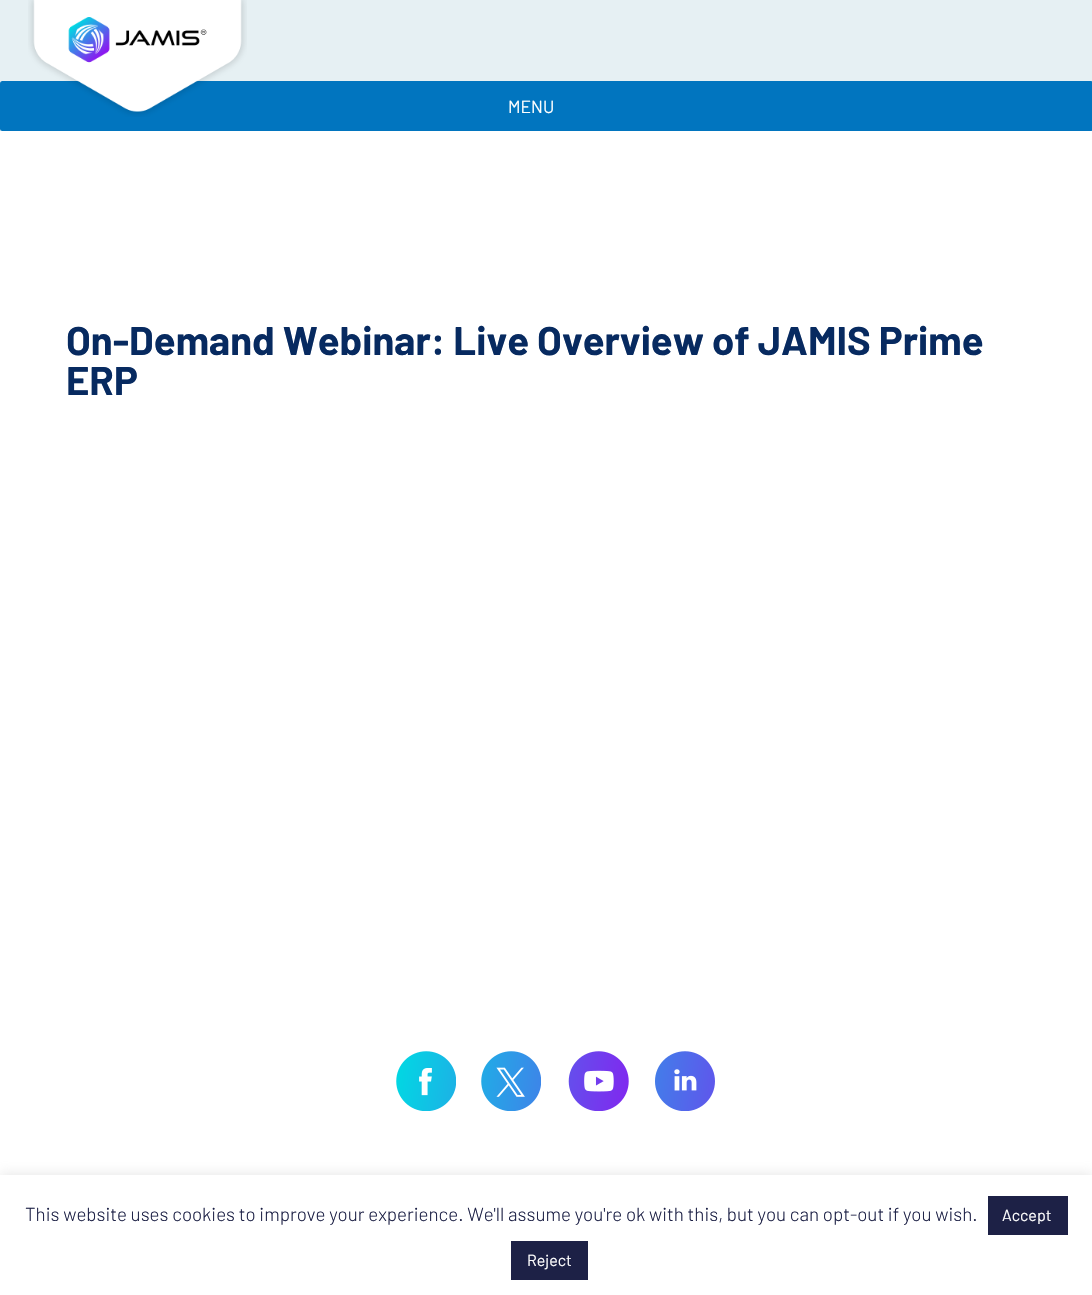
void draw(SkCanvas* canvas) {
  SkPaint paint;
  paint.setAntiAlias(true);
  auto face = [&](const char* family, int weight, float size, bool italic = false) {
    SkFontStyle style(weight, SkFontStyle::kNormal_Width,
      italic ? SkFontStyle::kItalic_Slant : SkFontStyle::kUpright_Slant);
    SkFont result(fontMgr->matchFamilyStyle(family, style), size);
    result.setSubpixel(true);
    return result;
  };
  auto paste = [&](const char* path, float x, float y, float w, float h) {
    auto image = SkImages::DeferredFromEncodedData(SkData::MakeFromFileName(path));
    canvas->drawImageRect(image, SkRect::MakeXYWH(x, y, w, h), SkSamplingOptions());
  };
  canvas->clear(0xffffffff);
  paint.setColor(0xffe6f0f3);
  canvas->drawRect(SkRect::MakeXYWH(0, 0, 1092, 131), paint);
  paint.setColor(0xff0175bf);
  canvas->drawRoundRect(SkRect::MakeXYWH(0, 81, 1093, 50), 2.5f, 2.5f, paint);
  paste("img/1.png", 28, 0, 219, 117);
  paste("img/2.png", 396, 1051, 60, 60);
  paste("img/3.png", 481, 1051, 60, 60);
  paste("img/4.png", 568, 1051, 61, 60);
  paste("img/5.png", 655, 1051, 60, 60);
  paint.setColor(0x4dacabab);
  paint.setMaskFilter(SkMaskFilter::MakeBlur(kNormal_SkBlurStyle, 6));
  canvas->drawRect(SkRect::MakeXYWH(0, 1174, 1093, 120), paint);
  paint.setMaskFilter(nullptr);
  {
    const struct { float x, y, w, h; SkColor color; } items[] = {
      {0, 1175, 1092, 120, 0xffffffff},
      {988, 1196, 80, 39, 0xff1d2146},
      {511, 1241, 77, 39, 0xff1d2146},
    };
    for (auto [x, y, w, h, color] : items) {
      paint.setColor(color);
      canvas->drawRect(SkRect::MakeXYWH(x, y, w, h), paint);
    }
  }
  auto f0 = face("Barlow", 400, 17.5f);
  paint.setColor(0xffffffff);
  canvas->drawString("MENU", 508, 113, f0, paint);
  auto f1 = face("Barlow", 700, 40);
  paint.setColor(0xff072a60);
  canvas->drawString("On-Demand Webinar: Live Overview of JAMIS Prime", 66, 355, f1, paint);
  canvas->drawString("ERP", 66, 395, f1, paint);
  auto f2 = face("Barlow", 300, 18.75f);
  paint.setColor(0xff1d2146);
  canvas->drawString("This website uses cookies to improve your experience. We'll assume you're ok with this, but you can opt-out if you wish.", 25, 1221, f2, paint);
  auto f3 = face("Barlow", 400, 16);
  paint.setColor(0xffffffff);
  canvas->drawString("Accept", 1002, 1221, f3, paint);
  canvas->drawString("Reject", 527, 1266, f3, paint);
}
